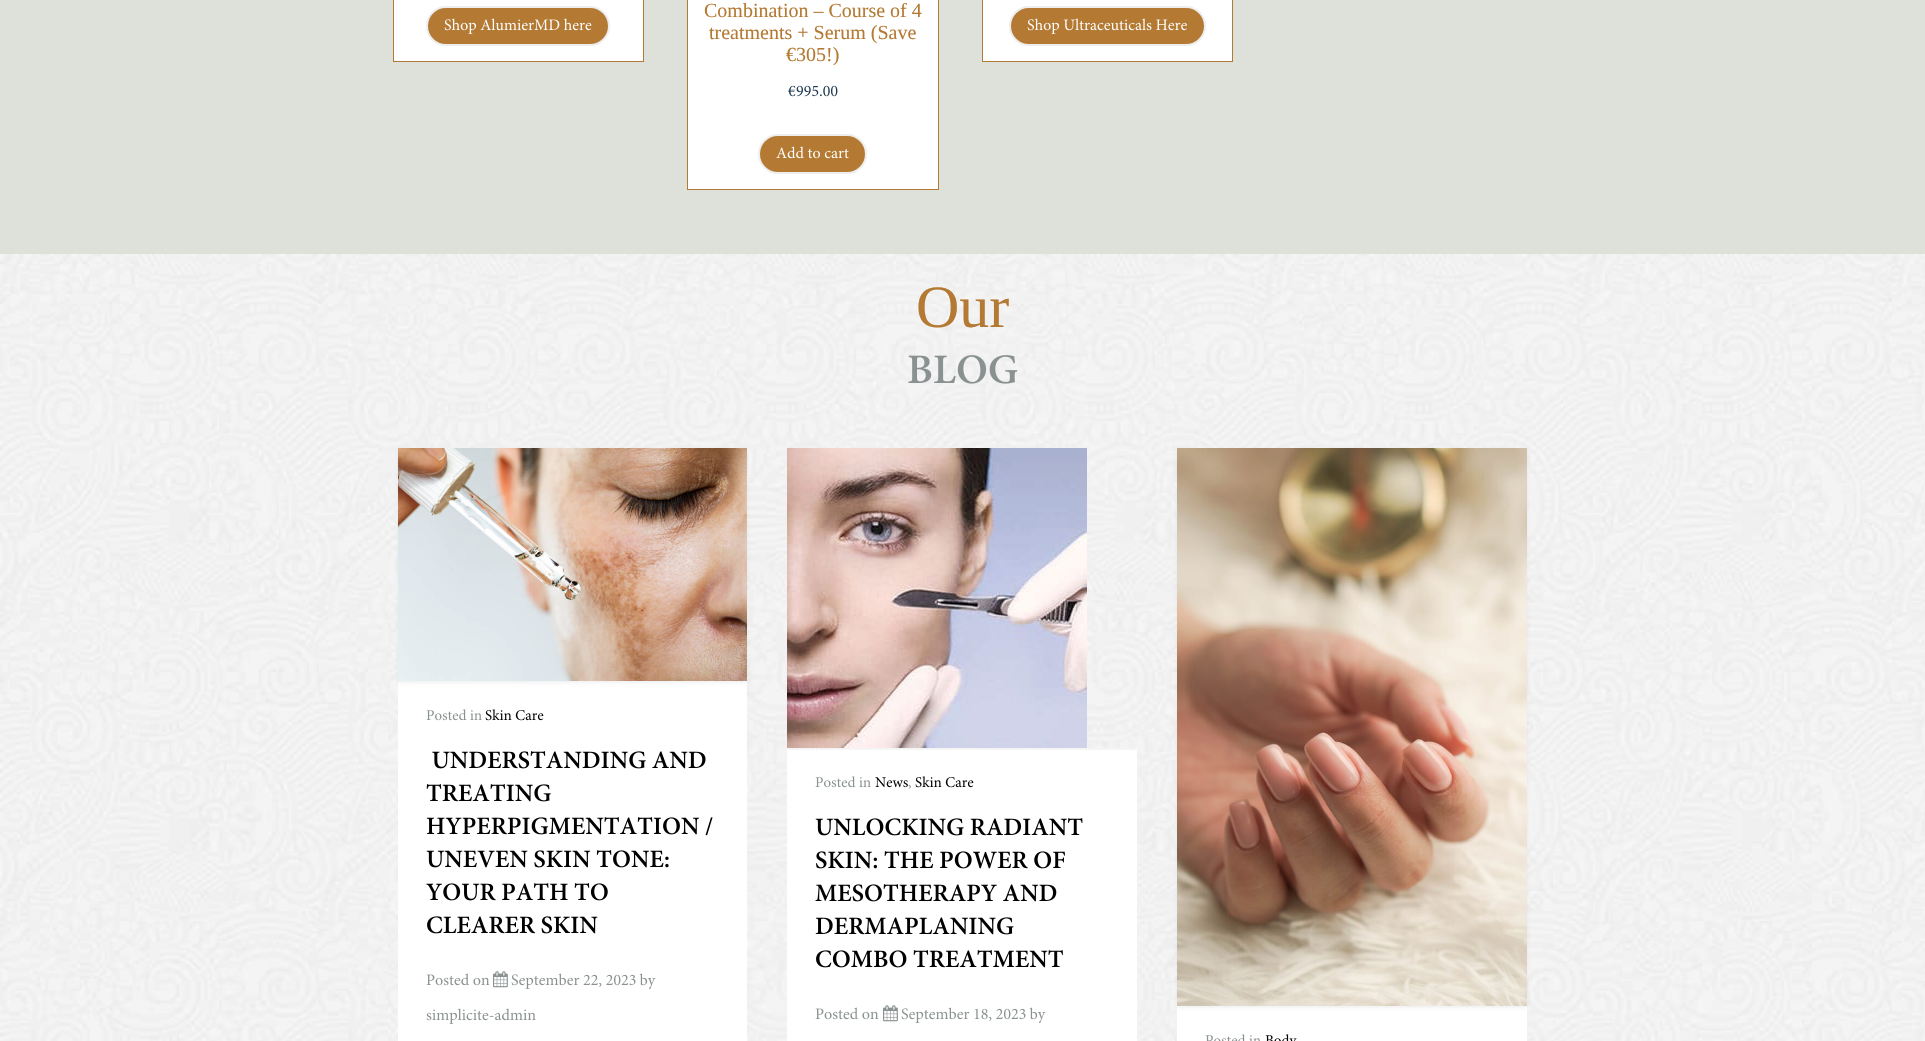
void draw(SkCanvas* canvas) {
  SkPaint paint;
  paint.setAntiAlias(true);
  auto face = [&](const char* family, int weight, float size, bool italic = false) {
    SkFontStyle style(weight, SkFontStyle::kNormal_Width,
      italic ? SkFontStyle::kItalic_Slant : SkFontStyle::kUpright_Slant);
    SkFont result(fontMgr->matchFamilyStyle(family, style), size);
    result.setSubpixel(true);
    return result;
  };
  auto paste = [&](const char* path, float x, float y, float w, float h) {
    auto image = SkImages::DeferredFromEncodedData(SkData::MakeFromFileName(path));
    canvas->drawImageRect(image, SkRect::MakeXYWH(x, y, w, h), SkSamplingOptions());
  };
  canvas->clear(0xffdee0da);
  paint.setColor(0xffffffff);
  canvas->drawRect(SkRect::MakeXYWH(393.5f, -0.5f, 250, 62), paint);
  paint.setStroke(true);
  paint.setStrokeWidth(1);
  paint.setColor(0xffb47a33);
  canvas->drawRect(SkRect::MakeXYWH(393.5f, -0.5f, 250, 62), paint);
  paint.setStroke(false);
  canvas->drawRoundRect(SkRect::MakeXYWH(427, 7, 182, 38), 19, 19, paint);
  paint.setStroke(true);
  paint.setStrokeWidth(2);
  paint.setColor(0xffeeeeee);
  canvas->drawRoundRect(SkRect::MakeXYWH(427, 7, 182, 38), 19, 19, paint);
  paste("img/1.png", 444, 18, 148, 16);
  paint.setStroke(false);
  paint.setColor(0xffffffff);
  canvas->drawRect(SkRect::MakeXYWH(687.5f, -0.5f, 251, 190), paint);
  paint.setStroke(true);
  paint.setStrokeWidth(1);
  paint.setColor(0xffb47a33);
  canvas->drawRect(SkRect::MakeXYWH(687.5f, -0.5f, 251, 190), paint);
  paste("img/2.png", 788, 85, 8, 12);
  paste("img/3.png", 796, 85, 42, 12);
  paint.setStroke(false);
  canvas->drawRoundRect(SkRect::MakeXYWH(759, 135, 107, 38), 19, 19, paint);
  paint.setStroke(true);
  paint.setStrokeWidth(2);
  paint.setColor(0xffeeeeee);
  canvas->drawRoundRect(SkRect::MakeXYWH(759, 135, 107, 38), 19, 19, paint);
  paste("img/4.png", 776, 146, 73, 13);
  paint.setStroke(false);
  paint.setColor(0xffffffff);
  canvas->drawRect(SkRect::MakeXYWH(982.5f, -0.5f, 250, 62), paint);
  paint.setStroke(true);
  paint.setStrokeWidth(1);
  paint.setColor(0xffb47a33);
  canvas->drawRect(SkRect::MakeXYWH(982.5f, -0.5f, 250, 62), paint);
  paint.setStroke(false);
  canvas->drawRoundRect(SkRect::MakeXYWH(1010, 7, 195, 38), 19, 19, paint);
  paint.setStroke(true);
  paint.setStrokeWidth(2);
  paint.setColor(0xffeeeeee);
  canvas->drawRoundRect(SkRect::MakeXYWH(1010, 7, 195, 38), 19, 19, paint);
  paste("img/5.png", 1027, 18, 160, 16);
  paste("img/6.png", 0, 254, 1925, 787);
  paste("img/7.png", 908, 355, 110, 29);
  paint.setStroke(false);
  paint.setColor(0xffffffff);
  canvas->drawRect(SkRect::MakeXYWH(398, 681, 349, 360), paint);
  paint.setColor(0x0d000000);
  paint.setMaskFilter(SkMaskFilter::MakeBlur(kNormal_SkBlurStyle, 1.5f));
  canvas->drawRect(SkRect::MakeXYWH(398, 450, 349, 233), paint);
  paint.setMaskFilter(nullptr);
  paste("img/8.png", 398, 448, 349, 233);
  paste("img/9.png", 426, 709, 56, 12);
  paste("img/10.png", 485, 709, 59, 12);
  paste("img/11.png", 432, 751, 274, 18);
  paste("img/12.png", 426, 784, 125, 18);
  paste("img/13.png", 426, 817, 287, 19);
  paste("img/14.png", 426, 850, 243, 18);
  paste("img/15.png", 426, 883, 182, 18);
  paste("img/16.png", 427, 916, 171, 18);
  paste("img/17.png", 426, 973, 64, 13);
  paste("img/18.png", 493, 971, 15, 17);
  paste("img/19.png", 511, 973, 125, 16);
  paste("img/20.png", 639, 973, 17, 16);
  paste("img/21.png", 426, 1008, 110, 16);
  paint.setColor(0xffffffff);
  canvas->drawRect(SkRect::MakeXYWH(787, 748, 350, 293), paint);
  canvas->save();
  canvas->clipRect(SkRect::MakeXYWH(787, 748, 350, 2));
  paint.setColor(0x0d000000);
  paint.setMaskFilter(SkMaskFilter::MakeBlur(kNormal_SkBlurStyle, 1.5f));
  canvas->drawRect(SkRect::MakeXYWH(787, 450, 350, 300), paint);
  paint.setMaskFilter(nullptr);
  canvas->restore();
  paste("img/22.png", 787, 448, 300, 300);
  paste("img/9.png", 815, 776, 56, 12);
  paste("img/23.png", 875, 777, 33, 11);
  paste("img/24.png", 908, 785, 3, 4);
  paste("img/10.png", 915, 776, 59, 12);
  paste("img/25.png", 815, 818, 268, 18);
  paste("img/26.png", 816, 851, 249, 18);
  paste("img/27.png", 815, 884, 242, 18);
  paste("img/28.png", 815, 917, 199, 18);
  paste("img/29.png", 816, 950, 247, 18);
  paste("img/17.png", 815, 1007, 64, 13);
  paste("img/18.png", 883, 1005, 15, 17);
  paste("img/30.png", 901, 1007, 125, 16);
  paste("img/20.png", 1029, 1007, 17, 16);
  paint.setColor(0xffffffff);
  canvas->drawRect(SkRect::MakeXYWH(1177, 1006, 350, 35), paint);
  paint.setColor(0x0d000000);
  paint.setMaskFilter(SkMaskFilter::MakeBlur(kNormal_SkBlurStyle, 1.5f));
  canvas->drawRect(SkRect::MakeXYWH(1177, 450, 350, 558), paint);
  paint.setMaskFilter(nullptr);
  paste("img/31.png", 1177, 448, 350, 558);
  paste("img/32.png", 1205, 1034, 55, 7);
  paste("img/33.png", 1265, 1034, 32, 7);
  auto f0 = face("Liberation Serif", 400, 20);
  paint.setColor(0xffb47a33);
  {
    const struct { const char* s; float x, y; } items[] = {
      {"Combination – Course of 4", 704, 17},
      {"treatments + Serum (Save", 709, 39},
      {"€305!)", 786, 61},
    };
    for (auto [s, x, y] : items) {
      canvas->drawString(s, x, y, f0, paint);
    }
  }
  auto f1 = face("Liberation Serif", 400, 60);
  canvas->drawString("Our", 916, 327, f1, paint);
}
